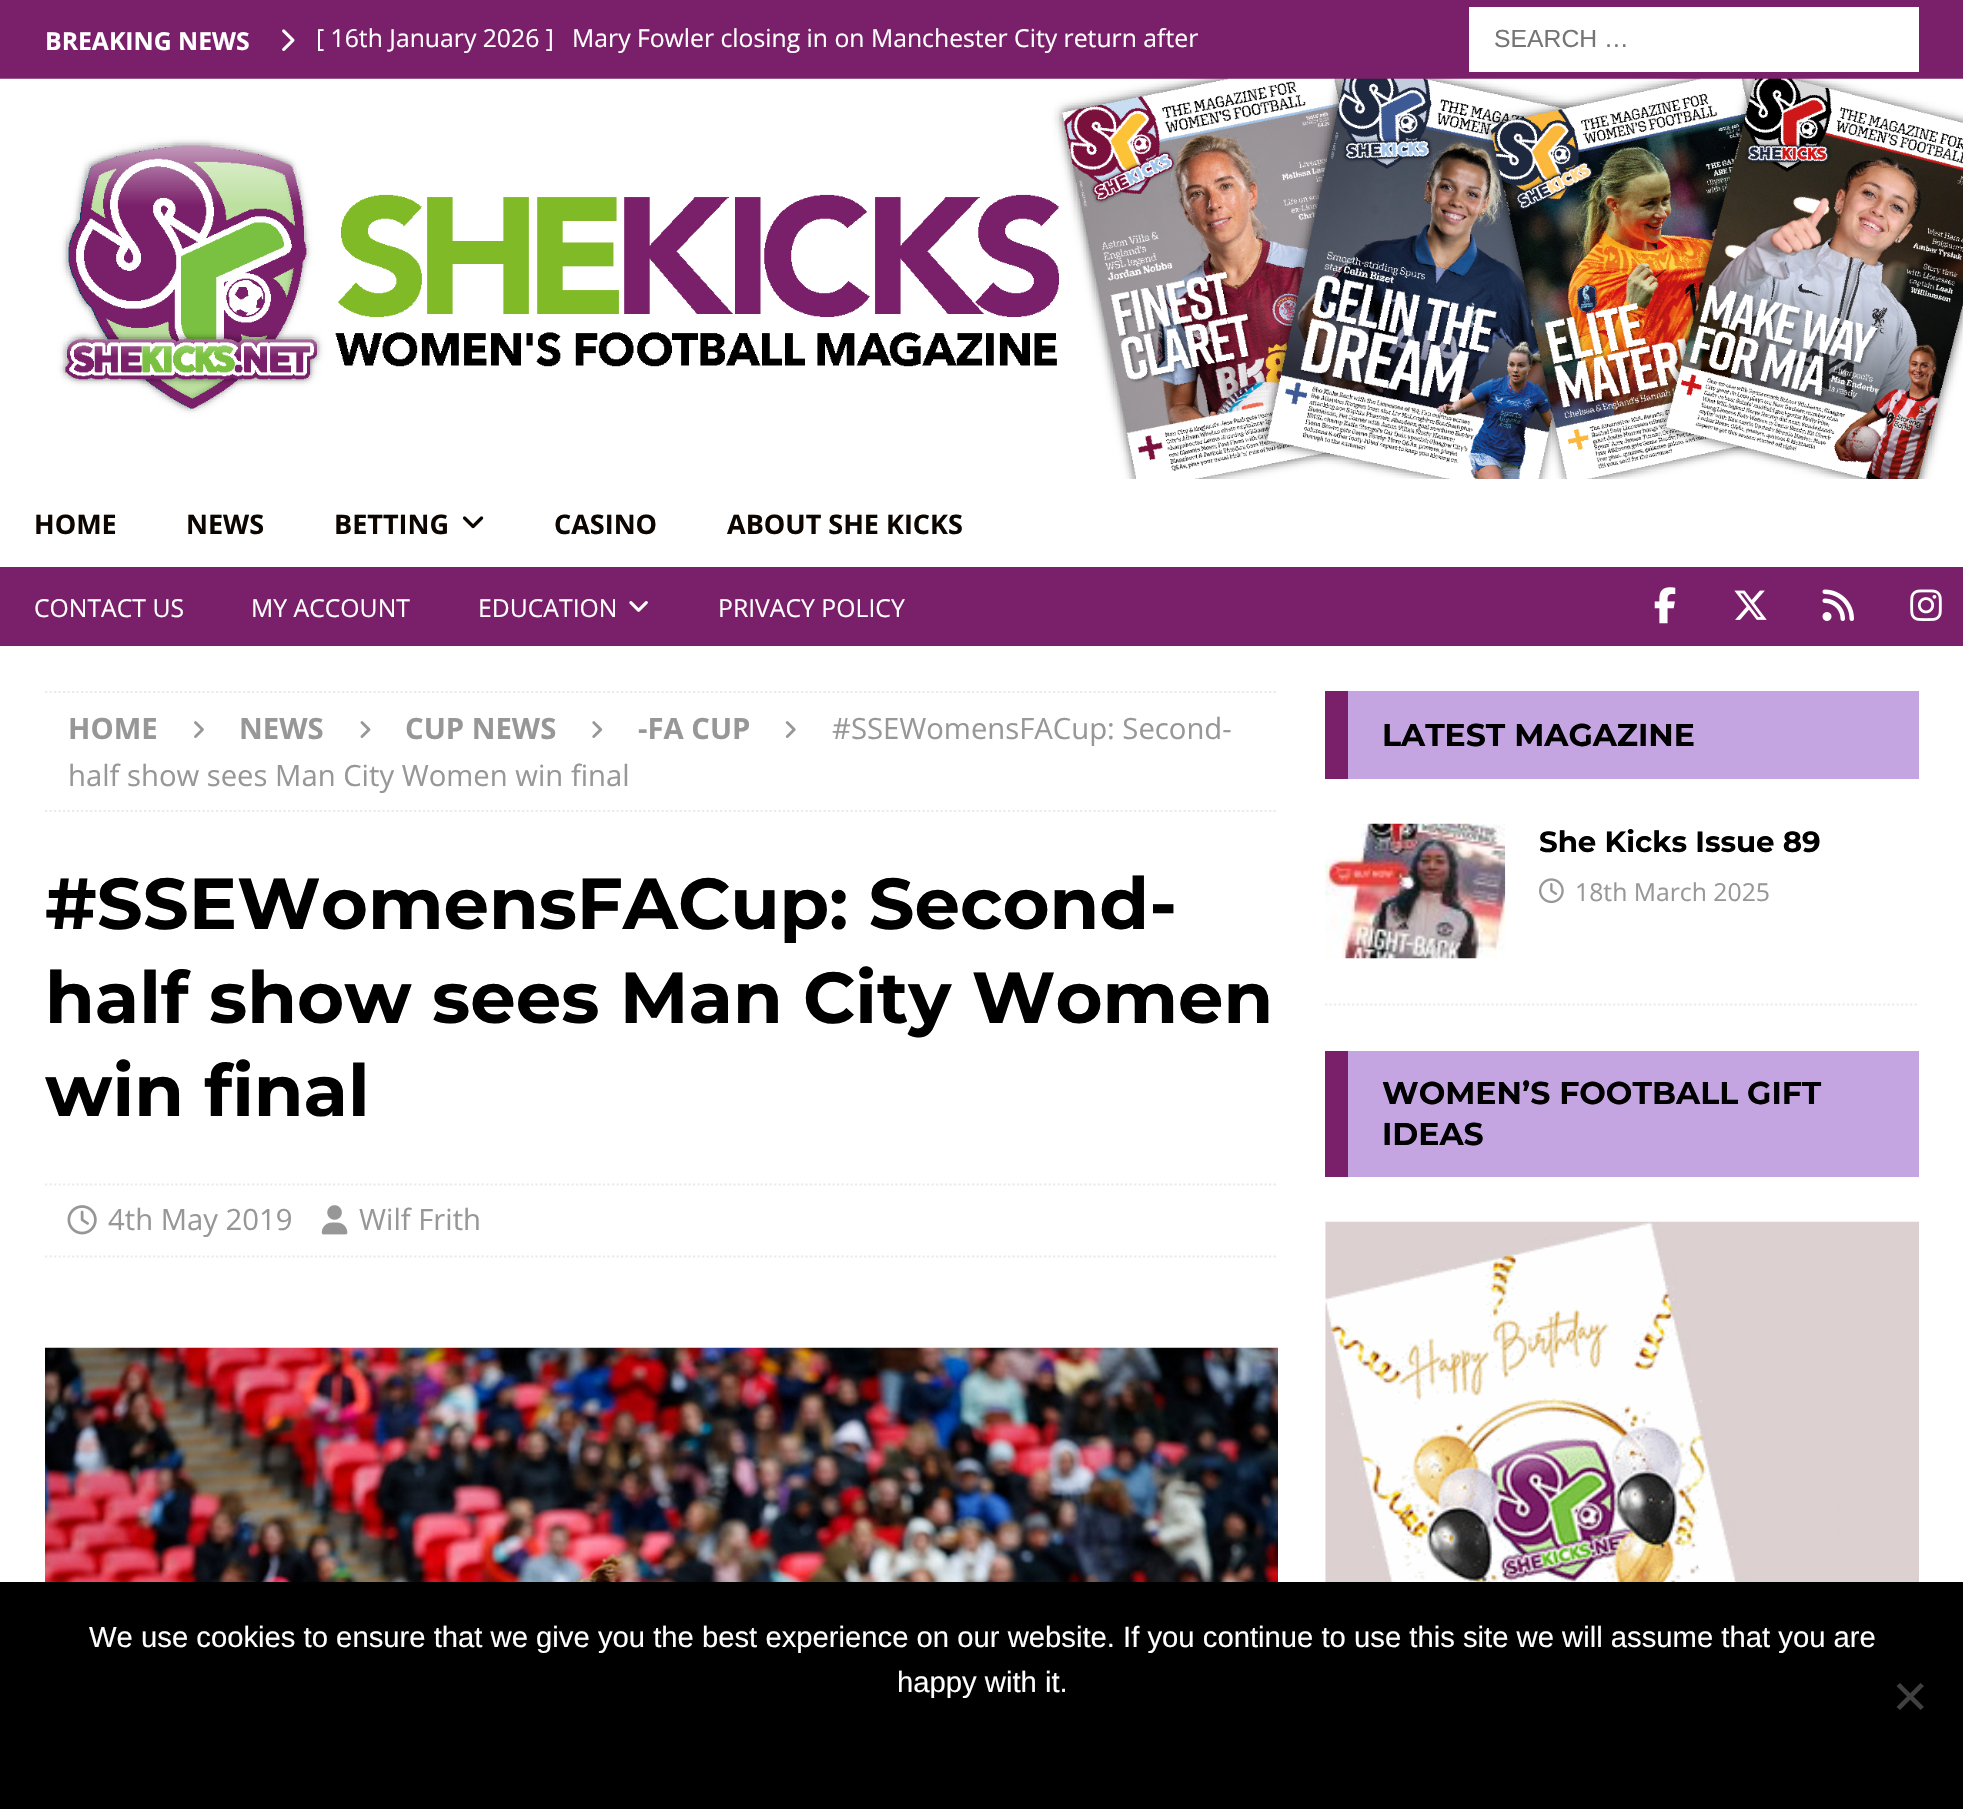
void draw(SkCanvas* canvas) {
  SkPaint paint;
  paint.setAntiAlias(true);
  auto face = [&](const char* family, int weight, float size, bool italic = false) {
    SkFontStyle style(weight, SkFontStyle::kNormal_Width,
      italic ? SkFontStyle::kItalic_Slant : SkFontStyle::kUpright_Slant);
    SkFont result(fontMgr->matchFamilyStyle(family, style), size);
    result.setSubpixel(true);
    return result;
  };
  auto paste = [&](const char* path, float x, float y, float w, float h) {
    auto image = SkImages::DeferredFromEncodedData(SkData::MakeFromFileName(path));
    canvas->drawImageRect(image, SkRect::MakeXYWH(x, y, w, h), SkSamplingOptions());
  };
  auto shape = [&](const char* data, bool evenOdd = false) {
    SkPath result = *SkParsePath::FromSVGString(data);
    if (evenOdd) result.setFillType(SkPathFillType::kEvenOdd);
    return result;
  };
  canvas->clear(0xffffffff);
  paint.setColor(0xff7a1f69);
  canvas->drawRect(SkRect::MakeXYWH(0, 0, 1963, 79), paint);
  paste("img/1.png", 282, 29, 13, 22);
  paint.setColor(0xffffffff);
  canvas->drawRect(SkRect::MakeXYWH(1469, 7, 450, 65), paint);
  paste("img/2.png", 0, 78, 1963, 401);
  paste("img/3.png", 463, 516, 21, 13);
  paint.setColor(0xff7a1f69);
  canvas->drawRect(SkRect::MakeXYWH(0, 567, 1963, 79), paint);
  paste("img/4.png", 629, 601, 19, 11);
  paste("img/5.png", 1654, 587, 22, 37);
  paste("img/6.png", 1734, 590, 33, 30);
  paste("img/7.png", 1822, 589, 32, 32);
  paste("img/8.png", 1910, 589, 32, 32);
  canvas->save();
  canvas->clipRect(SkRect::MakeXYWH(45, 691, 1233, 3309));
  paint.setStroke(true);
  paint.setStrokeWidth(2.2f);
  paint.setColor(0xffebebeb);
  paint.setPathEffect(SkDashPathEffect::Make({{2.25f, 2.25f}}, 0));
  canvas->drawPath(shape("M45 692H1278"), paint);
  paint.setPathEffect(nullptr);
  canvas->restore();
  paint.setPathEffect(SkDashPathEffect::Make({{2.25f, 2.25f}}, 0));
  canvas->drawPath(shape("M45 811H1278"), paint);
  paint.setPathEffect(nullptr);
  paste("img/9.png", 194, 721, 10, 17);
  paste("img/10.png", 360, 721, 11, 17);
  paste("img/11.png", 592, 721, 11, 17);
  paste("img/12.png", 785, 721, 11, 17);
  paint.setPathEffect(SkDashPathEffect::Make({{2.25f, 2.25f}}, 0));
  canvas->drawPath(shape("M45 1184.5H1278"), paint);
  paint.setPathEffect(nullptr);
  paint.setPathEffect(SkDashPathEffect::Make({{2.25f, 2.25f}}, 0));
  canvas->drawPath(shape("M45 1256.5H1278"), paint);
  paint.setPathEffect(nullptr);
  paste("img/13.png", 67, 1205, 30, 30);
  paste("img/14.png", 321, 1205, 27, 30);
  paste("img/15.png", 45, 1347, 1233, 235);
  paint.setStroke(false);
  paint.setColor(0xffc4a5e2);
  canvas->drawRect(SkRect::MakeXYWH(1348, 691, 571, 88), paint);
  paint.setColor(0xff7a1f69);
  canvas->drawRect(SkRect::MakeXYWH(1325, 691, 23, 88), paint);
  paint.setStroke(true);
  paint.setColor(0xffebebeb);
  paint.setPathEffect(SkDashPathEffect::Make({{2.25f, 2.25f}}, 0));
  canvas->drawPath(shape("M1325 1004.5H1919"), paint);
  paint.setPathEffect(nullptr);
  paste("img/16.png", 1325, 823, 181, 136);
  paste("img/17.png", 1539, 878, 25, 26);
  paint.setStroke(false);
  paint.setColor(0xffc4a5e2);
  canvas->drawRect(SkRect::MakeXYWH(1348, 1051, 571, 126), paint);
  paint.setColor(0xff7a1f69);
  canvas->drawRect(SkRect::MakeXYWH(1325, 1051, 23, 126), paint);
  paste("img/18.png", 1325, 1221, 594, 361);
  paint.setColor(0xff000000);
  canvas->drawRect(SkRect::MakeXYWH(0, 1582, 1963, 227), paint);
  paint.setColor(0xff404040);
  canvas->drawPath(shape("M1920.5 1683L1924 1686L1900 1710L1896.5 1707Z"), paint);
  canvas->drawPath(shape("M1896.5 1686L1900 1683L1924 1707L1920.5 1710Z"), paint);
  auto f0 = face("Open Sans", 700, 24.75f);
  paint.setColor(0xffffffff);
  canvas->drawString("BREAKING NEWS", 45, 50, f0, paint);
  auto f1 = face("Open Sans", 400, 24.75f);
  canvas->drawString("[ 16th January 2026 ]", 316, 47, f1, paint);
  canvas->drawString("Mary Fowler closing in on Manchester City return after", 572, 47, f1, paint);
  auto f2 = face("Liberation Sans", 400, 24.75f);
  paint.setColor(0xff757575);
  canvas->drawString("SEARCH …", 1494, 47, f2, paint);
  auto f3 = face("Open Sans", 700, 27);
  paint.setColor(0xff0c0500);
  {
    const struct { const char* s; float x, y; } items[] = {
      {"HOME", 34, 534},
      {"NEWS", 186, 534},
      {"BETTING", 334, 534},
      {"CASINO", 554, 534},
      {"ABOUT SHE KICKS", 727, 534},
    };
    for (auto [s, x, y] : items) {
      canvas->drawString(s, x, y, f3, paint);
    }
  }
  paint.setColor(0xffffffff);
  {
    const struct { const char* s; float x, y; } items[] = {
      {"CONTACT US", 34, 617},
      {"MY ACCOUNT", 251, 617},
      {"EDUCATION", 478, 617},
      {"PRIVACY POLICY", 718, 617},
    };
    for (auto [s, x, y] : items) {
      canvas->drawString(s, x, y, f1, paint);
    }
  }
  auto f4 = face("Open Sans", 700, 29.25f);
  paint.setColor(0xff979797);
  {
    const struct { const char* s; float x, y; } items[] = {
      {"HOME", 68, 739},
      {"NEWS", 239, 739},
      {"CUP NEWS", 405, 739},
      {"-FA CUP", 638, 739},
    };
    for (auto [s, x, y] : items) {
      canvas->drawString(s, x, y, f4, paint);
    }
  }
  auto f5 = face("Open Sans", 400, 29.25f);
  canvas->drawString("#SSEWomensFACup: Second-", 832, 739, f5, paint);
  canvas->drawString("half show sees Man City Women win final", 68, 786, f5, paint);
  auto f6 = face("Montserrat", 700, 72);
  paint.setColor(0xff000000);
  {
    const struct { const char* s; float x, y; } items[] = {
      {"#SSEWomensFACup: Second-", 45, 929},
      {"half show sees Man City Women", 45, 1023},
      {"win final", 45, 1116},
    };
    for (auto [s, x, y] : items) {
      canvas->drawString(s, x, y, f6, paint);
    }
  }
  paint.setColor(0xff979797);
  canvas->drawString("4th May 2019", 108, 1230, f5, paint);
  canvas->drawString("Wilf Frith", 359, 1230, f5, paint);
  auto f7 = face("Montserrat", 700, 31.5f);
  paint.setColor(0xff000000);
  canvas->drawString("LATEST MAGAZINE", 1382, 746, f7, paint);
  auto f8 = face("Montserrat", 700, 29.25f);
  canvas->drawString("She Kicks Issue 89", 1539, 852, f8, paint);
  paint.setColor(0xff979797);
  canvas->drawString("18th March 2025", 1575, 901, f1, paint);
  paint.setColor(0xff000000);
  canvas->drawString("WOMEN’S FOOTBALL GIFT", 1382, 1104, f7, paint);
  canvas->drawString("IDEAS", 1382, 1145, f7, paint);
  auto f9 = face("Liberation Sans", 400, 29.25f);
  paint.setColor(0xffffffff);
  canvas->drawString("We use cookies to ensure that we give you the best experience on our website. If you continue to use this site we will assume that you are", 89, 1647, f9, paint);
  canvas->drawString("happy with it.", 897, 1692, f9, paint);
}
